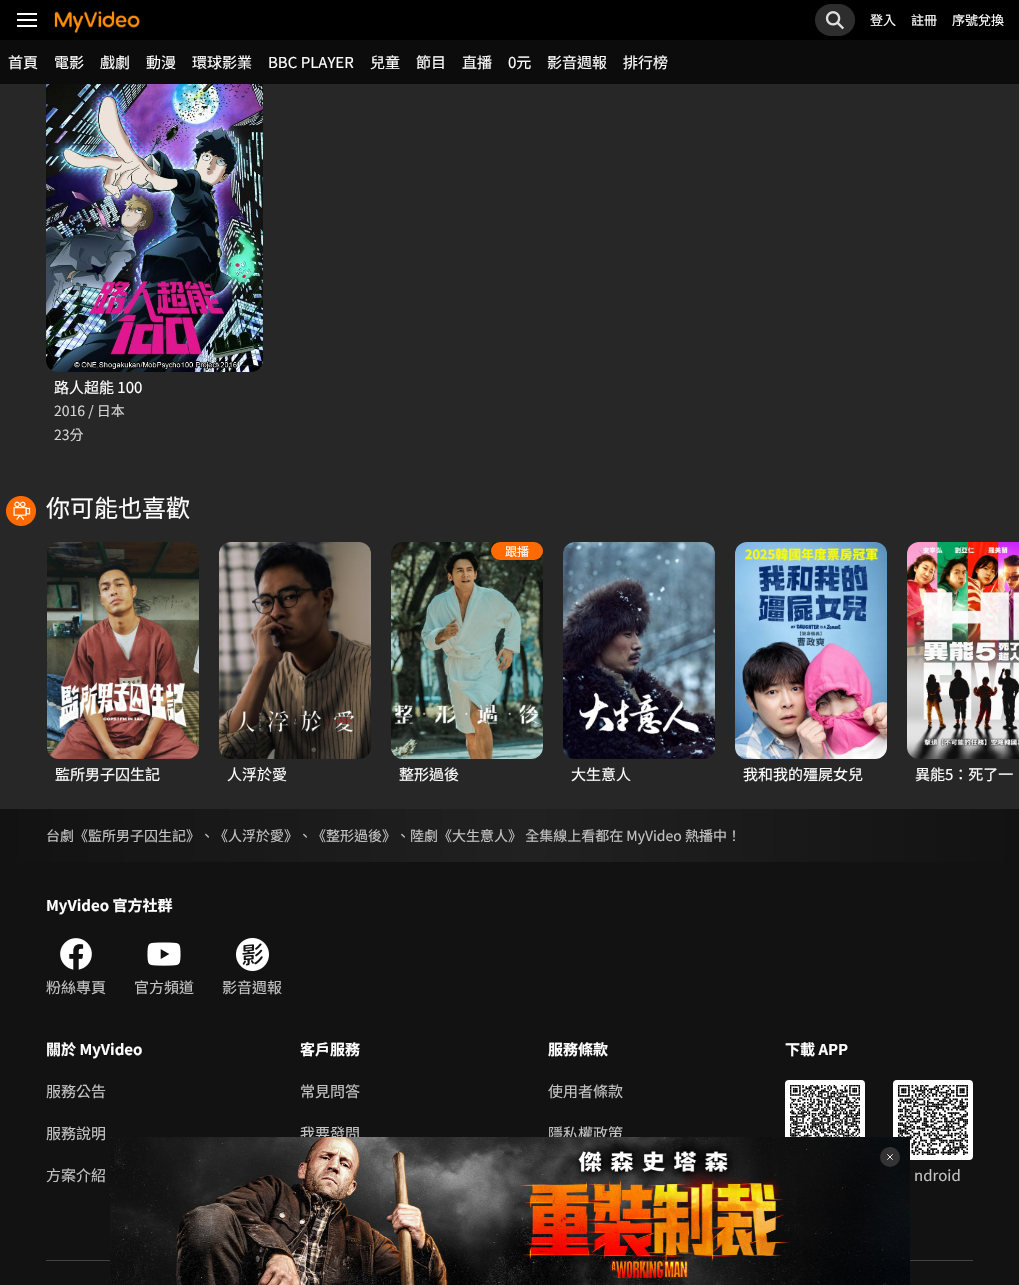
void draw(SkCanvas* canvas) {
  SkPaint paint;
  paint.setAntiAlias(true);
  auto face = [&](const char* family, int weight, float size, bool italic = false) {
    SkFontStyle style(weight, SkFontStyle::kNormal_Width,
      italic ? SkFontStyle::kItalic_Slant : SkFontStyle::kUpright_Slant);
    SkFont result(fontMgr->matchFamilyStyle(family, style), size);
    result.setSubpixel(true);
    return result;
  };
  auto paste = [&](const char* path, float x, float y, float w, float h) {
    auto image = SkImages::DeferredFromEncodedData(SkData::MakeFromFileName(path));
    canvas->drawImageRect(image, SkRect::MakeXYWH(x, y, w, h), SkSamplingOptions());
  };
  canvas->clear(0xff272727);
  paint.setColor(0xff000000);
  canvas->drawRect(SkRect::MakeXYWH(0, 0, 1019, 40), paint);
  paste("img/1.png", 17, 13, 20, 14);
  paste("img/2.png", 54, 11, 86, 22);
  paint.setColor(0xff2d2d2d);
  canvas->drawRoundRect(SkRect::MakeXYWH(815, 4, 40, 32), 16, 16, paint);
  paste("img/3.png", 825, 11, 19, 19);
  paint.setColor(0xff0c0c0c);
  canvas->drawRect(SkRect::MakeXYWH(0, 40, 1019, 44), paint);
  paste("img/6.png", 46, 84, 217, 288);
  paste("img/7.png", 6, 496, 30, 30);
  paste("img/8.png", 47, 542, 152, 217);
  paste("img/9.png", 219, 542, 152, 217);
  paste("img/10.png", 391, 542, 152, 217);
  paint.setColor(0xffff6b00);
  canvas->drawRoundRect(SkRect::MakeXYWH(491, 542, 52, 18), 9, 9, paint);
  paste("img/11.png", 563, 542, 152, 217);
  paste("img/12.png", 735, 542, 152, 217);
  paste("img/13.png", 907, 542, 112, 217);
  paint.setColor(0xff121212);
  canvas->drawRect(SkRect::MakeXYWH(0, 862, 1019, 423), paint);
  {
    const SkColor colors[] = {0xff121212, 0xff212121, 0xff121212};
    const float stops[] = {0, 0.52f, 1};
    const SkPoint ends[] = {{0, 836}, {1019, 836}};
    paint.setShader(SkGradientShader::MakeLinear(ends, colors, stops, 3, SkTileMode::kClamp));
    paint.setAlpha(255);
  }
  canvas->drawRect(SkRect::MakeXYWH(0, 809, 1019, 53), paint);
  paste("img/14.png", 60, 938, 32, 32);
  paste("img/15.png", 147, 942, 34, 24);
  paste("img/16.png", 236, 938, 33, 33);
  paste("img/17.png", 785, 1080, 80, 57);
  paste("img/18.png", 893, 1080, 80, 80);
  paint.setShader(nullptr);
  paint.setColor(0xff424242);
  canvas->drawRect(SkRect::MakeXYWH(46, 1260, 927, 1), paint);
  auto f0 = face("Noto Sans TC", 400, 13);
  paint.setColor(0xffffffff);
  {
    const struct { const char* s; float x, y; } items[] = {
      {"登入", 870, 25},
      {"註冊", 911, 25},
      {"序號兌換", 952, 25},
    };
    for (auto [s, x, y] : items) {
      canvas->drawString(s, x, y, f0, paint);
    }
  }
  auto f1 = face("Noto Sans TC", 400, 15);
  {
    const struct { const char* s; float x, y; } items[] = {
      {"首頁", 8, 68},
      {"電影", 54, 68},
      {"戲劇", 100, 68},
      {"動漫", 146, 68},
      {"環球影業", 192, 68},
      {"BBC PLAYER", 268, 68},
      {"兒童", 370, 68},
      {"節目", 416, 68},
      {"直播", 462, 68},
      {"0元", 508, 68},
      {"影音週報", 547, 68},
      {"排行榜", 623, 68},
      {"路人超能 100", 54, 393},
    };
    for (auto [s, x, y] : items) {
      canvas->drawString(s, x, y, f1, paint);
    }
  }
  auto f2 = face("Noto Sans TC", 400, 14);
  paint.setColor(0xffd4d4d4);
  canvas->drawString("2016 / 日本", 54, 416, f2, paint);
  canvas->drawString("23分", 54, 440, f2, paint);
  auto f3 = face("Noto Sans TC", 400, 24);
  paint.setColor(0xffffffff);
  canvas->drawString("你可能也喜歡", 46, 517, f3, paint);
  canvas->drawString("監所男子囚生記", 55, 780, f1, paint);
  canvas->drawString("人浮於愛", 227, 780, f1, paint);
  auto f4 = face("Noto Sans TC", 400, 12);
  canvas->drawString("跟播", 505, 556, f4, paint);
  {
    const struct { const char* s; float x, y; } items[] = {
      {"整形過後", 399, 780},
      {"大生意人", 571, 780},
      {"我和我的殭屍女兒", 743, 780},
      {"異能5：死了一", 915, 780},
    };
    for (auto [s, x, y] : items) {
      canvas->drawString(s, x, y, f1, paint);
    }
  }
  paint.setColor(0xffc4c4c4);
  canvas->drawString("台劇《監所男子囚生記》、《人浮於愛》、《整形過後》、陸劇《大生意人》 全集線上看都在 MyVideo 熱播中！", 46, 841, f2, paint);
  auto f5 = face("Noto Sans TC", 700, 15);
  paint.setColor(0xffffffff);
  canvas->drawString("MyVideo 官方社群", 46, 911, f5, paint);
  paint.setColor(0xffc4c4c4);
  {
    const struct { const char* s; float x, y; } items[] = {
      {"粉絲專頁", 46, 993},
      {"官方頻道", 134, 993},
      {"影音週報", 222, 993},
    };
    for (auto [s, x, y] : items) {
      canvas->drawString(s, x, y, f1, paint);
    }
  }
  paint.setColor(0xffffffff);
  canvas->drawString("關於 MyVideo", 46, 1055, f5, paint);
  paint.setColor(0xffc4c4c4);
  {
    const struct { const char* s; float x, y; } items[] = {
      {"服務公告", 46, 1097},
      {"服務說明", 46, 1139},
      {"方案介紹", 46, 1181},
    };
    for (auto [s, x, y] : items) {
      canvas->drawString(s, x, y, f1, paint);
    }
  }
  paint.setColor(0xffffffff);
  canvas->drawString("客戶服務", 300, 1055, f5, paint);
  paint.setColor(0xffc4c4c4);
  canvas->drawString("常見問答", 300, 1097, f1, paint);
  canvas->drawString("我要發問", 300, 1139, f1, paint);
  paint.setColor(0xffffffff);
  canvas->drawString("服務條款", 548, 1055, f5, paint);
  paint.setColor(0xffc4c4c4);
  canvas->drawString("使用者條款", 548, 1097, f1, paint);
  canvas->drawString("隱私權政策", 548, 1139, f1, paint);
  paste("img/4.png", 110, 1137, 800, 148);
  paint.setColor(0xff333333);
  canvas->drawCircle(890, 1157, 10, paint);
  paste("img/5.png", 887, 1154, 6, 6);
  paint.setColor(0xffffffff);
  canvas->drawString("下載 APP", 785, 1055, f5, paint);
  paint.setColor(0xffc4c4c4);
  canvas->drawString("ndroid", 914, 1181, f1, paint);
}
